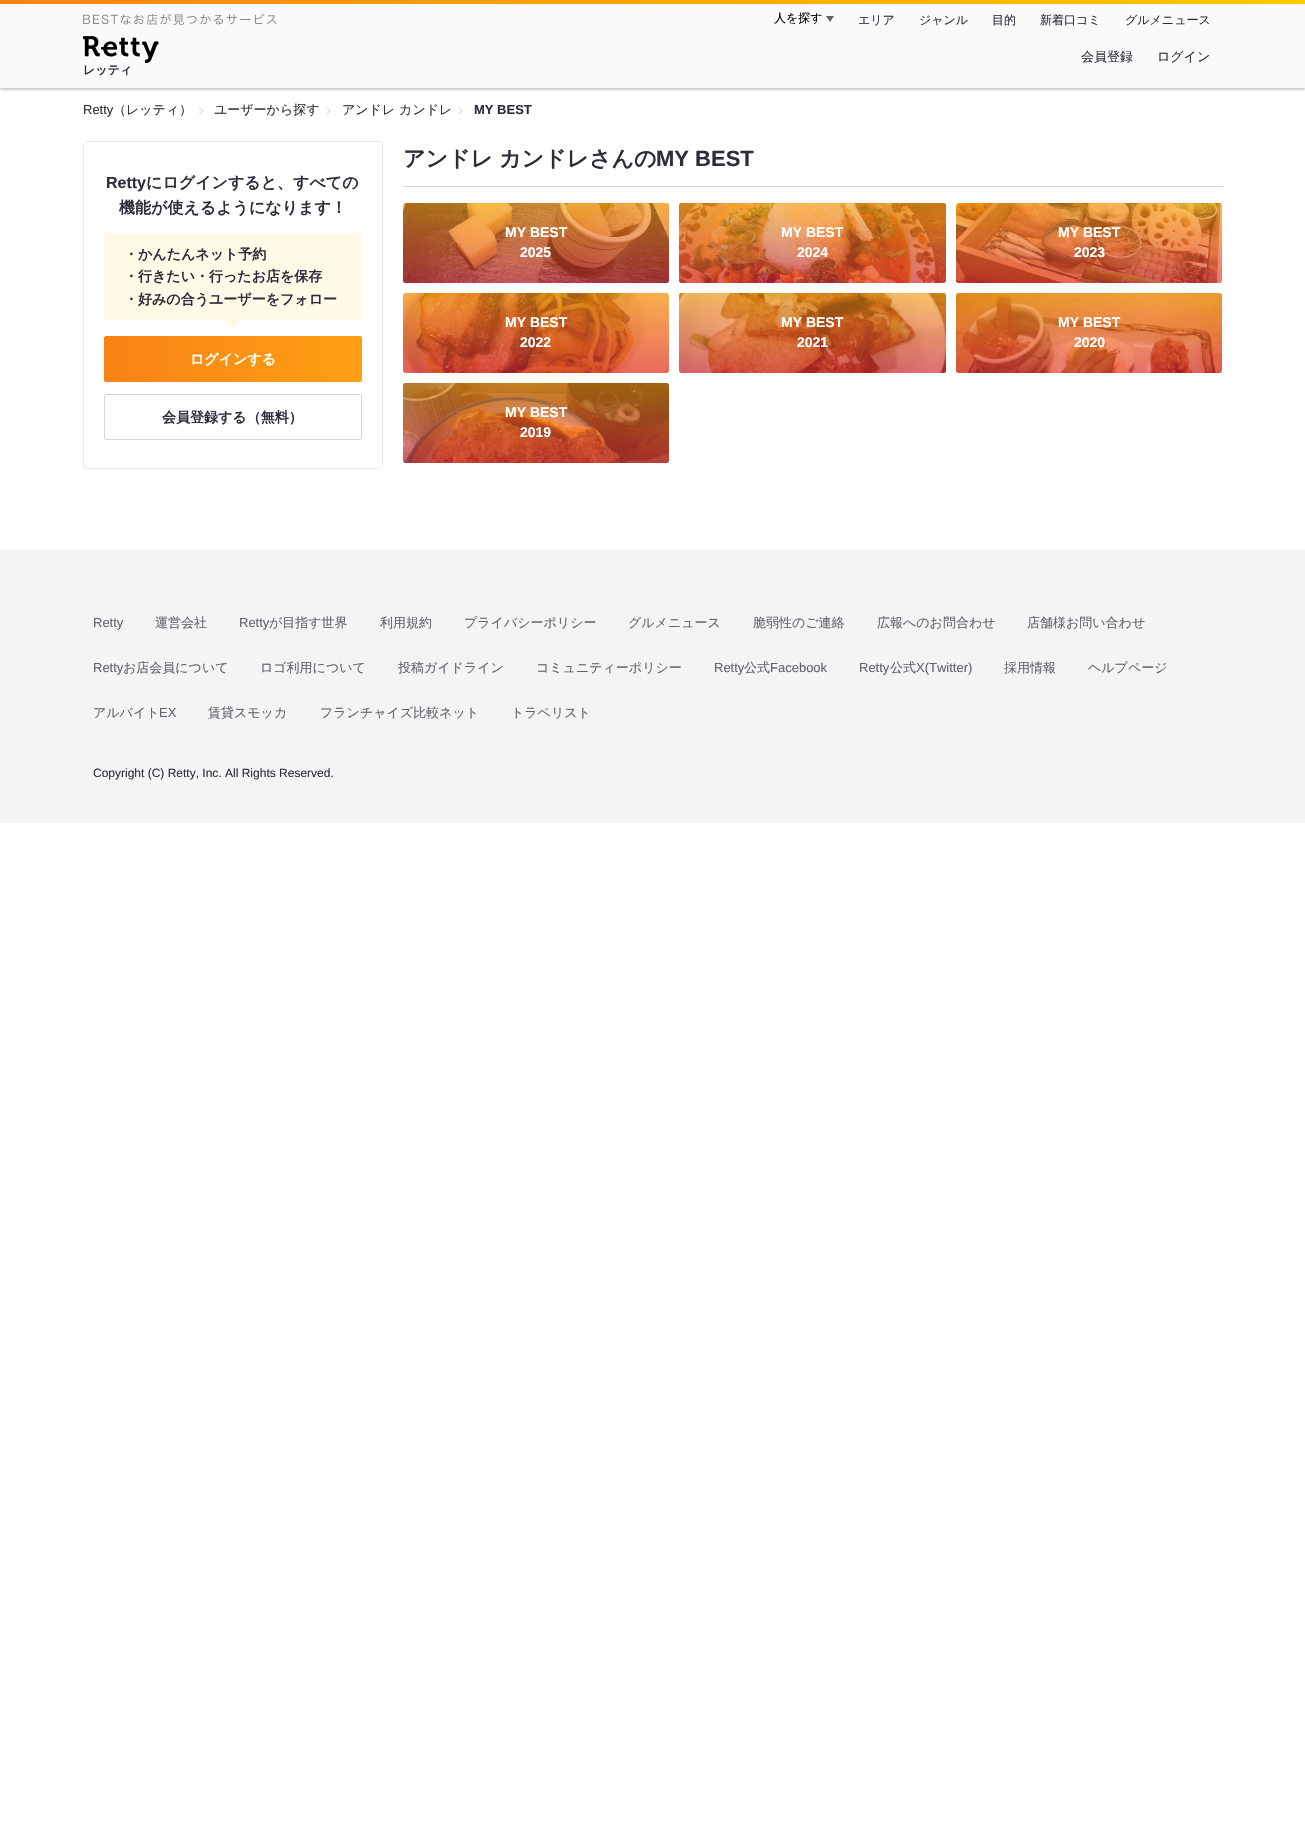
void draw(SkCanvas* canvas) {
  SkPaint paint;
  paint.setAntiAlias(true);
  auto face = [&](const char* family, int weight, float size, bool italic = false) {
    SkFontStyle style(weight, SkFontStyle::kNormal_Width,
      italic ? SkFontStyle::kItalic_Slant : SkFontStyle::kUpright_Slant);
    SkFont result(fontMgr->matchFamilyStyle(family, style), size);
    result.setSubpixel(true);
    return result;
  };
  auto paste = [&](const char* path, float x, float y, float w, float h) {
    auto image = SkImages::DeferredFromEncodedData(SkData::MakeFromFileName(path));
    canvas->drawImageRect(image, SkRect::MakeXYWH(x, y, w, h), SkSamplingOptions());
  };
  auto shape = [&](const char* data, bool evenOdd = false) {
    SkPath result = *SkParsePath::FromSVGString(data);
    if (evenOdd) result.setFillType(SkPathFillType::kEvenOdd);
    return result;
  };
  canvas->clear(0xffffffff);
  paint.setColor(0x33000000);
  paint.setMaskFilter(SkMaskFilter::MakeBlur(kNormal_SkBlurStyle, 1));
  canvas->drawRect(SkRect::MakeXYWH(0, 2, 1305, 88), paint);
  paint.setMaskFilter(nullptr);
  paint.setColor(0xfffafafa);
  canvas->drawRect(SkRect::MakeXYWH(0, 4, 1305, 84), paint);
  {
    const SkColor colors[] = {0xffff8214, 0xffffca00};
    const float stops[] = {0, 1};
    const SkPoint ends[] = {{0, 2}, {1305, 2}};
    paint.setShader(SkGradientShader::MakeLinear(ends, colors, stops, 2, SkTileMode::kClamp));
    paint.setAlpha(255);
  }
  canvas->drawRect(SkRect::MakeXYWH(0, 0, 1305, 4), paint);
  paste("img/1.png", 83, 13, 194, 12);
  paint.setShader(nullptr);
  paint.setColor(0xff62626c);
  canvas->drawPath(shape("M826 16H834L830 22Z"), paint);
  paste("img/2.png", 83, 36, 76, 27);
  paint.setColor(0xffd5d5d8);
  canvas->drawPath(shape("M199 107L203.5 111H202L199 108ZM203.5 111L199 115V114L202 111Z"), paint);
  canvas->drawPath(shape("M326.5 107L331 111H329.5L326.5 108ZM331 111L326.5 115V114L329.5 111Z"), paint);
  canvas->drawPath(shape("M458.5 107L463 111H461.5L458.5 108ZM463 111L458.5 115V114L461.5 111Z"), paint);
  paint.setStroke(true);
  paint.setStrokeWidth(1);
  paint.setColor(0xffeaeaea);
  canvas->drawRoundRect(SkRect::MakeXYWH(83.5f, 141.5f, 299, 327), 3.5f, 3.5f, paint);
  paint.setStroke(false);
  paint.setColor(0xfffff9e7);
  canvas->drawRect(SkRect::MakeXYWH(104, 233, 258, 87), paint);
  canvas->drawPath(shape("M223 320H243L233 330Z"), paint);
  {
    const SkColor colors[] = {0xfff98214, 0xffffa014};
    const float stops[] = {0, 1};
    const SkPoint ends[] = {{104, 359}, {362, 359}};
    paint.setShader(SkGradientShader::MakeLinear(ends, colors, stops, 2, SkTileMode::kClamp));
    paint.setAlpha(255);
  }
  canvas->drawRoundRect(SkRect::MakeXYWH(104, 336, 258, 46), 2, 2, paint);
  paint.setStroke(true);
  paint.setShader(nullptr);
  paint.setColor(0xffd5d5d8);
  canvas->drawRoundRect(SkRect::MakeXYWH(104.5f, 394.5f, 257, 45), 1.5f, 1.5f, paint);
  paint.setStroke(false);
  canvas->drawRect(SkRect::MakeXYWH(403, 186, 820, 1), paint);
  paste("img/3.png", 403, 203, 266, 80);
  {
    const SkColor colors[] = {0x99ffa014, 0x99e52e39};
    const float stops[] = {0, 1};
    const SkPoint ends[] = {{536, 203}, {536, 283}};
    paint.setShader(SkGradientShader::MakeLinear(ends, colors, stops, 2, SkTileMode::kClamp));
    paint.setAlpha(255);
  }
  canvas->drawRoundRect(SkRect::MakeXYWH(403, 203, 266, 80), 3, 3, paint);
  paste("img/4.png", 679, 203, 267, 80);
  {
    const SkColor colors[] = {0x99ffa014, 0x99e52e39};
    const float stops[] = {0, 1};
    const SkPoint ends[] = {{813, 203}, {813, 283}};
    paint.setShader(SkGradientShader::MakeLinear(ends, colors, stops, 2, SkTileMode::kClamp));
    paint.setAlpha(255);
  }
  canvas->drawRoundRect(SkRect::MakeXYWH(679, 203, 267, 80), 3, 3, paint);
  paste("img/5.png", 956, 203, 266, 80);
  {
    const SkColor colors[] = {0x99ffa014, 0x99e52e39};
    const float stops[] = {0, 1};
    const SkPoint ends[] = {{1089, 203}, {1089, 283}};
    paint.setShader(SkGradientShader::MakeLinear(ends, colors, stops, 2, SkTileMode::kClamp));
    paint.setAlpha(255);
  }
  canvas->drawRoundRect(SkRect::MakeXYWH(956, 203, 266, 80), 3, 3, paint);
  paste("img/6.png", 403, 293, 266, 80);
  {
    const SkColor colors[] = {0x99ffa014, 0x99e52e39};
    const float stops[] = {0, 1};
    const SkPoint ends[] = {{536, 293}, {536, 373}};
    paint.setShader(SkGradientShader::MakeLinear(ends, colors, stops, 2, SkTileMode::kClamp));
    paint.setAlpha(255);
  }
  canvas->drawRoundRect(SkRect::MakeXYWH(403, 293, 266, 80), 3, 3, paint);
  paste("img/7.png", 679, 293, 267, 80);
  {
    const SkColor colors[] = {0x99ffa014, 0x99e52e39};
    const float stops[] = {0, 1};
    const SkPoint ends[] = {{813, 293}, {813, 373}};
    paint.setShader(SkGradientShader::MakeLinear(ends, colors, stops, 2, SkTileMode::kClamp));
    paint.setAlpha(255);
  }
  canvas->drawRoundRect(SkRect::MakeXYWH(679, 293, 267, 80), 3, 3, paint);
  paste("img/8.png", 956, 293, 266, 80);
  {
    const SkColor colors[] = {0x99ffa014, 0x99e52e39};
    const float stops[] = {0, 1};
    const SkPoint ends[] = {{1089, 293}, {1089, 373}};
    paint.setShader(SkGradientShader::MakeLinear(ends, colors, stops, 2, SkTileMode::kClamp));
    paint.setAlpha(255);
  }
  canvas->drawRoundRect(SkRect::MakeXYWH(956, 293, 266, 80), 3, 3, paint);
  paste("img/9.png", 403, 383, 266, 80);
  {
    const SkColor colors[] = {0x99ffa014, 0x99e52e39};
    const float stops[] = {0, 1};
    const SkPoint ends[] = {{536, 383}, {536, 463}};
    paint.setShader(SkGradientShader::MakeLinear(ends, colors, stops, 2, SkTileMode::kClamp));
    paint.setAlpha(255);
  }
  canvas->drawRoundRect(SkRect::MakeXYWH(403, 383, 266, 80), 3, 3, paint);
  paint.setShader(nullptr);
  paint.setColor(0xfff4f4f5);
  canvas->drawRect(SkRect::MakeXYWH(0, 549, 1305, 274), paint);
  auto f0 = face("WenQuanYi Zen Hei", 500, 12);
  paint.setColor(0xff000000);
  canvas->drawString("人を探す", 774, 22, f0, paint);
  paint.setColor(0xff2e2e3b);
  {
    const struct { const char* s; float x, y; } items[] = {
      {"エリア", 858, 24},
      {"ジャンル", 919, 24},
      {"目的", 992, 24},
      {"新着口コミ", 1040, 24},
      {"グルメニュース", 1125, 24},
    };
    for (auto [s, x, y] : items) {
      canvas->drawString(s, x, y, f0, paint);
    }
  }
  auto f1 = face("WenQuanYi Zen Hei", 500, 13);
  canvas->drawString("会員登録", 1081, 61, f1, paint);
  canvas->drawString("ログイン", 1157, 61, f1, paint);
  auto f2 = face("WenQuanYi Zen Hei", 700, 12);
  canvas->drawString("レッティ", 83, 74, f2, paint);
  auto f3 = face("Liberation Sans", 400, 13);
  canvas->drawString("Retty", 83, 114, f3, paint);
  {
    const struct { const char* s; float x, y; } items[] = {
      {"（レッティ）", 113, 114},
      {"ユーザーから探す", 214, 114},
      {"アンドレ カンドレ", 342, 114},
    };
    for (auto [s, x, y] : items) {
      canvas->drawString(s, x, y, f1, paint);
    }
  }
  auto f4 = face("Liberation Sans", 700, 13);
  canvas->drawString("MY BEST", 474, 114, f4, paint);
  auto f5 = face("Liberation Sans", 700, 16);
  canvas->drawString("Retty", 106, 188, f5, paint);
  auto f6 = face("WenQuanYi Zen Hei", 700, 16);
  canvas->drawString("にログインすると、すべての", 146, 188, f6, paint);
  canvas->drawString("機能が使えるようになります！", 119, 213, f6, paint);
  auto f7 = face("WenQuanYi Zen Hei", 700, 14);
  {
    const struct { const char* s; float x, y; } items[] = {
      {"・かんたんネット予約", 124, 259},
      {"・行きたい・行ったお店を保存", 124, 281},
      {"・好みの合うユーザーをフォロー", 124, 304},
    };
    for (auto [s, x, y] : items) {
      canvas->drawString(s, x, y, f7, paint);
    }
  }
  paint.setColor(0xffffffff);
  canvas->drawString("ログインする", 190, 364, f7, paint);
  paint.setColor(0xff2e2e3b);
  canvas->drawString("会員登録する（無料）", 162, 422, f7, paint);
  auto f8 = face("WenQuanYi Zen Hei", 700, 22);
  canvas->drawString("アンドレ", 403, 166, f8, paint);
  canvas->drawString("カンドレさんの", 499, 166, f8, paint);
  auto f9 = face("Liberation Sans", 700, 22);
  canvas->drawString("MY BEST", 656, 166, f9, paint);
  auto f10 = face("Liberation Sans", 700, 14);
  paint.setColor(0xffffffff);
  {
    const struct { const char* s; float x, y; } items[] = {
      {"MY BEST", 505, 237},
      {"2025", 520, 257},
      {"MY BEST", 781, 237},
      {"2024", 797, 257},
      {"MY BEST", 1058, 237},
      {"2023", 1074, 257},
      {"MY BEST", 505, 327},
      {"2022", 520, 347},
      {"MY BEST", 781, 327},
      {"2021", 797, 347},
      {"MY BEST", 1058, 327},
      {"2020", 1074, 347},
      {"MY BEST", 505, 417},
      {"2019", 520, 437},
    };
    for (auto [s, x, y] : items) {
      canvas->drawString(s, x, y, f10, paint);
    }
  }
  paint.setColor(0xff62626c);
  canvas->drawString("Retty", 93, 627, f3, paint);
  canvas->drawString("運営会社", 155, 627, f1, paint);
  canvas->drawString("Retty", 239, 627, f3, paint);
  {
    const struct { const char* s; float x, y; } items[] = {
      {"が目指す世界", 269, 627},
      {"利用規約", 380, 627},
      {"プライバシーポリシー", 464, 627},
      {"グルメニュース", 628, 627},
      {"脆弱性のご連絡", 753, 627},
      {"広報へのお問合わせ", 877, 627},
      {"店舗様お問い合わせ", 1027, 627},
    };
    for (auto [s, x, y] : items) {
      canvas->drawString(s, x, y, f1, paint);
    }
  }
  canvas->drawString("Retty", 93, 672, f3, paint);
  {
    const struct { const char* s; float x, y; } items[] = {
      {"お店会員について", 123, 672},
      {"ロゴ利用について", 260, 672},
      {"投稿ガイドライン", 398, 672},
      {"コミュニティーポリシー", 536, 672},
    };
    for (auto [s, x, y] : items) {
      canvas->drawString(s, x, y, f1, paint);
    }
  }
  canvas->drawString("Retty", 714, 672, f3, paint);
  canvas->drawString("公式", 744, 672, f1, paint);
  canvas->drawString("Facebook", 770, 672, f3, paint);
  canvas->drawString("Retty", 859, 672, f3, paint);
  canvas->drawString("公式", 890, 672, f1, paint);
  canvas->drawString("X(Twitter)", 916, 672, f3, paint);
  {
    const struct { const char* s; float x, y; } items[] = {
      {"採用情報", 1004, 672},
      {"ヘルプページ", 1088, 672},
      {"アルバイト", 93, 717},
    };
    for (auto [s, x, y] : items) {
      canvas->drawString(s, x, y, f1, paint);
    }
  }
  canvas->drawString("EX", 159, 717, f3, paint);
  {
    const struct { const char* s; float x, y; } items[] = {
      {"賃貸スモッカ", 208, 717},
      {"フランチャイズ比較ネット", 320, 717},
      {"トラベリスト", 511, 717},
    };
    for (auto [s, x, y] : items) {
      canvas->drawString(s, x, y, f1, paint);
    }
  }
  auto f11 = face("Liberation Sans", 400, 12);
  paint.setColor(0xff2e2e3b);
  canvas->drawString("Copyright (C) Retty, Inc. All Rights Reserved.", 93, 777, f11, paint);
}
